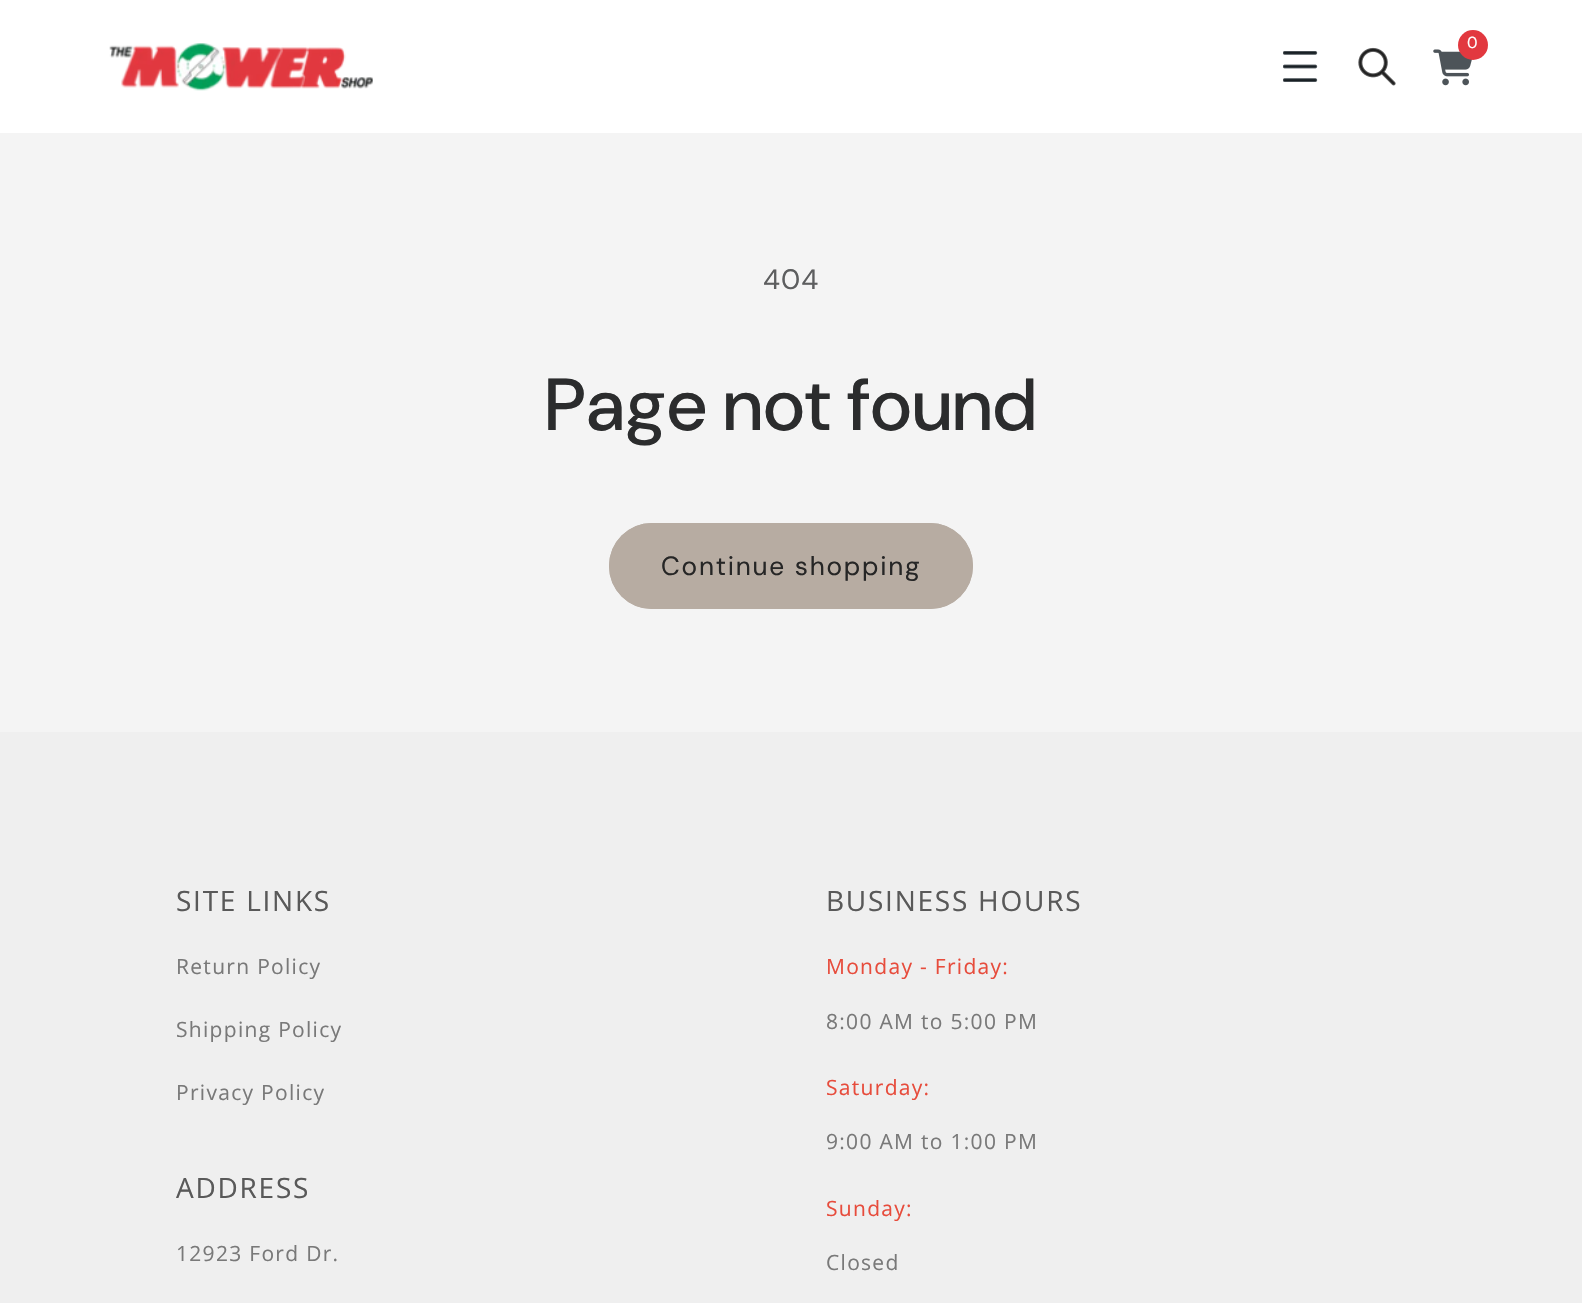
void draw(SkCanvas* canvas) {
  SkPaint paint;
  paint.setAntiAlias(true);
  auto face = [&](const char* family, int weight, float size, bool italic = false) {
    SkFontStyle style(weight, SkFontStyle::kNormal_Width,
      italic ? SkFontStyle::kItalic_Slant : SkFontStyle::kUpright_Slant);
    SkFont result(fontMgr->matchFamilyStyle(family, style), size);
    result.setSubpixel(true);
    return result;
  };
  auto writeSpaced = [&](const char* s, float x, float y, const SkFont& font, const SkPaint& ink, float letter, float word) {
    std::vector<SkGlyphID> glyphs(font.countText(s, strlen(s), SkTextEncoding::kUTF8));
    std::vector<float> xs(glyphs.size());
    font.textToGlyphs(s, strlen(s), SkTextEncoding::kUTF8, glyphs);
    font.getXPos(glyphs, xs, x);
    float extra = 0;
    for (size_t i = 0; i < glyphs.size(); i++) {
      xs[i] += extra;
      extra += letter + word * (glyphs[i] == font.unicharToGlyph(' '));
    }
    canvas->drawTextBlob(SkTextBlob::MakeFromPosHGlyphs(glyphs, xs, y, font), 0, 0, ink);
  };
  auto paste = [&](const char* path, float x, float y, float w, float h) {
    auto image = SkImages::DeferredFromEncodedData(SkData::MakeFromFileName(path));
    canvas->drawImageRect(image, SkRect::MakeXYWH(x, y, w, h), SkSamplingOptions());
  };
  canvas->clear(0xfff4f4f4);
  paint.setColor(0xffffffff);
  canvas->drawRect(SkRect::MakeXYWH(0, 0, 1582, 133), paint);
  paste("img/1.png", 109, 43, 264, 48);
  paste("img/2.png", 1283, 51, 35, 31);
  paste("img/3.png", 1433, 49, 39, 37);
  paint.setColor(0xffe2383f);
  canvas->drawCircle(1473, 45, 15, paint);
  paste("img/4.png", 1358, 47, 38, 39);
  paint.setColor(0xffb7aca2);
  canvas->drawRoundRect(SkRect::MakeXYWH(609, 523, 364, 86), 43, 43, paint);
  paint.setStroke(true);
  paint.setStrokeWidth(4);
  canvas->drawRoundRect(SkRect::MakeXYWH(611, 525, 360, 82), 41, 41, paint);
  paint.setStroke(false);
  paint.setColor(0xffefefef);
  canvas->drawRect(SkRect::MakeXYWH(0, 732, 1582, 571), paint);
  auto f0 = face("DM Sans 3", 400, 16);
  paint.setColor(0xffffffff);
  writeSpaced("0", 1467, 48, f0, paint, 1, 0);
  auto f1 = face("DM Sans", 400, 28);
  paint.setColor(0xff5d5e5f);
  writeSpaced("404", 763, 289, f1, paint, 1, 0);
  auto f2 = face("DM Sans", 500, 73.5f);
  paint.setColor(0xff2b2c2d);
  writeSpaced("Page not found", 545, 430, f2, paint, 1.1f, 0);
  auto f3 = face("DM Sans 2", 400, 26.25f);
  paint.setColor(0xff262626);
  writeSpaced("Continue shopping", 661, 575, f3, paint, 1.75f, 0);
  auto f4 = face("Open Sans", 400, 28);
  paint.setColor(0xff595959);
  writeSpaced("SITE LINKS", 176, 911, f4, paint, 1.75f, 0);
  auto f5 = face("Open Sans", 400, 21);
  paint.setColor(0xff797979);
  {
    const struct { const char* s; float x, y; } items[] = {
      {"Return Policy", 176, 974},
      {"Shipping Policy", 176, 1037},
      {"Privacy Policy", 176, 1100},
    };
    for (auto [s, x, y] : items) {
      writeSpaced(s, x, y, f5, paint, 1.3f, 0);
    }
  }
  paint.setColor(0xff595959);
  writeSpaced("ADDRESS", 176, 1198, f4, paint, 1.75f, 0);
  paint.setColor(0xff797979);
  writeSpaced("12923 Ford Dr.", 176, 1261, f5, paint, 1.3f, 0);
  paint.setColor(0xff595959);
  writeSpaced("BUSINESS HOURS", 826, 911, f4, paint, 1.75f, 0);
  paint.setColor(0xffe74c3c);
  writeSpaced("Monday - Friday:", 826, 974, f5, paint, 1.3f, 0);
  paint.setColor(0xff797979);
  writeSpaced("8:00 AM to 5:00 PM", 826, 1029, f5, paint, 1.3f, 0);
  paint.setColor(0xffe74c3c);
  writeSpaced("Saturday:", 826, 1095, f5, paint, 1.3f, 0);
  paint.setColor(0xff797979);
  writeSpaced("9:00 AM to 1:00 PM", 826, 1149, f5, paint, 1.3f, 0);
  paint.setColor(0xffe74c3c);
  writeSpaced("Sunday:", 826, 1216, f5, paint, 1.3f, 0);
  paint.setColor(0xff797979);
  writeSpaced("Closed", 826, 1270, f5, paint, 1.3f, 0);
}
